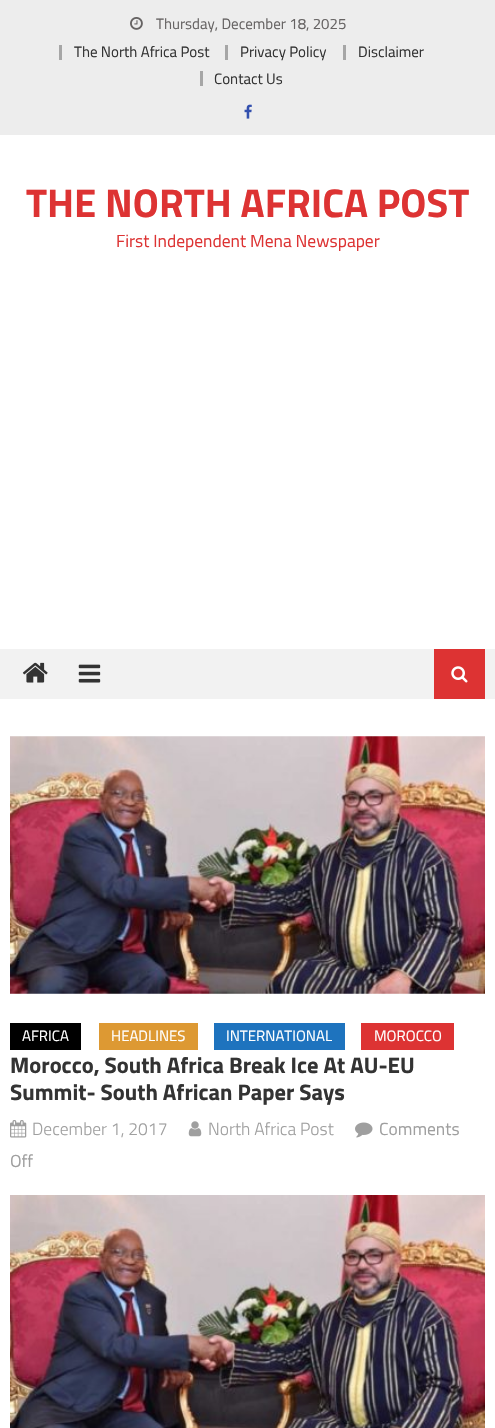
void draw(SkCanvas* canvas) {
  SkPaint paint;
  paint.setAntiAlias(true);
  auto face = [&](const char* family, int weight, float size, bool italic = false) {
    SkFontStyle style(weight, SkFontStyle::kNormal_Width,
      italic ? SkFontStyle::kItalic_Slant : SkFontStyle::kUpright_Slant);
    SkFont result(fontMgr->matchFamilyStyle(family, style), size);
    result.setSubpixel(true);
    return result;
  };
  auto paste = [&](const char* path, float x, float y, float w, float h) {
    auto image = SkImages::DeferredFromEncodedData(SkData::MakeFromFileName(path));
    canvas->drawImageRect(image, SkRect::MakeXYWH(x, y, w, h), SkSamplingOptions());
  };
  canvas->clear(0xffffffff);
  paint.setColor(0xffededed);
  canvas->drawRect(SkRect::MakeXYWH(0, 0, 495, 135), paint);
  paste("img/1.png", 130, 17, 13, 13);
  {
    const struct { float x, y, w, h; SkColor color; } items[] = {
      {59, 45, 3, 15, 0xffa6a6a6},
      {225, 45, 3, 15, 0xffa6a6a6},
      {343, 45, 3, 15, 0xffa6a6a6},
      {200, 71, 3, 15, 0xffa6a6a6},
    };
    for (auto [x, y, w, h, color] : items) {
      paint.setColor(color);
      canvas->drawRect(SkRect::MakeXYWH(x, y, w, h), paint);
    }
  }
  paste("img/2.png", 244, 104, 8, 15);
  paint.setColor(0xfff2f2f2);
  canvas->drawRect(SkRect::MakeXYWH(0, 649, 495, 50), paint);
  paste("img/3.png", 22, 662, 26, 21);
  paste("img/4.png", 78, 664, 23, 19);
  paint.setColor(0xffdd3333);
  canvas->drawRect(SkRect::MakeXYWH(434, 649, 51, 50), paint);
  paste("img/5.png", 451, 666, 17, 17);
  paste("img/6.png", 10, 736, 475, 258);
  {
    const struct { float x, y, w, h; SkColor color; } items[] = {
      {10, 1023, 71, 27, 0xff000000},
      {99, 1023, 99, 27, 0xffdd9933},
      {214, 1023, 131, 27, 0xff1e73be},
      {361, 1023, 93, 27, 0xffdd3333},
    };
    for (auto [x, y, w, h, color] : items) {
      paint.setColor(color);
      canvas->drawRect(SkRect::MakeXYWH(x, y, w, h), paint);
    }
  }
  paste("img/7.png", 10, 1120, 17, 18);
  paste("img/8.png", 188, 1121, 14, 16);
  paste("img/9.png", 355, 1122, 18, 16);
  paste("img/10.png", 10, 1195, 475, 233);
  auto f0 = face("Titillium Web", 400, 15);
  paint.setColor(0xff666363);
  canvas->drawString("Thursday, December 18, 2025", 156, 29, f0, paint);
  paint.setColor(0xff333333);
  {
    const struct { const char* s; float x, y; } items[] = {
      {"The North Africa Post", 74, 57},
      {"Privacy Policy", 240, 57},
      {"Disclaimer", 358, 57},
      {"Contact Us", 214, 84},
    };
    for (auto [s, x, y] : items) {
      canvas->drawString(s, x, y, f0, paint);
    }
  }
  auto f1 = face("Titillium Web", 700, 40);
  paint.setColor(0xffdd3333);
  canvas->drawString("THE NORTH AFRICA POST", 26, 217, f1, paint);
  auto f2 = face("Titillium Web", 400, 17.5f);
  canvas->drawString("First Independent Mena Newspaper", 116, 247, f2, paint);
  paint.setColor(0xffffffff);
  {
    const struct { const char* s; float x, y; } items[] = {
      {"AFRICA", 22, 1041},
      {"HEADLINES", 111, 1041},
      {"INTERNATIONAL", 226, 1041},
      {"MOROCCO", 374, 1041},
    };
    for (auto [s, x, y] : items) {
      canvas->drawString(s, x, y, f0, paint);
    }
  }
  auto f3 = face("Titillium Web", 700, 22.5f);
  paint.setColor(0xff333333);
  canvas->drawString("Morocco, South Africa Break Ice At AU-EU", 10, 1073, f3, paint);
  canvas->drawString("Summit- South African Paper Says", 10, 1100, f3, paint);
  auto f4 = face("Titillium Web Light", 300, 17.5f);
  paint.setColor(0xff9f9f9f);
  canvas->drawString("December 1, 2017", 32, 1135, f4, paint);
  canvas->drawString("North Africa Post", 208, 1135, f4, paint);
  canvas->drawString("Comments", 379, 1135, f2, paint);
  canvas->drawString("Off", 10, 1167, f2, paint);
}
